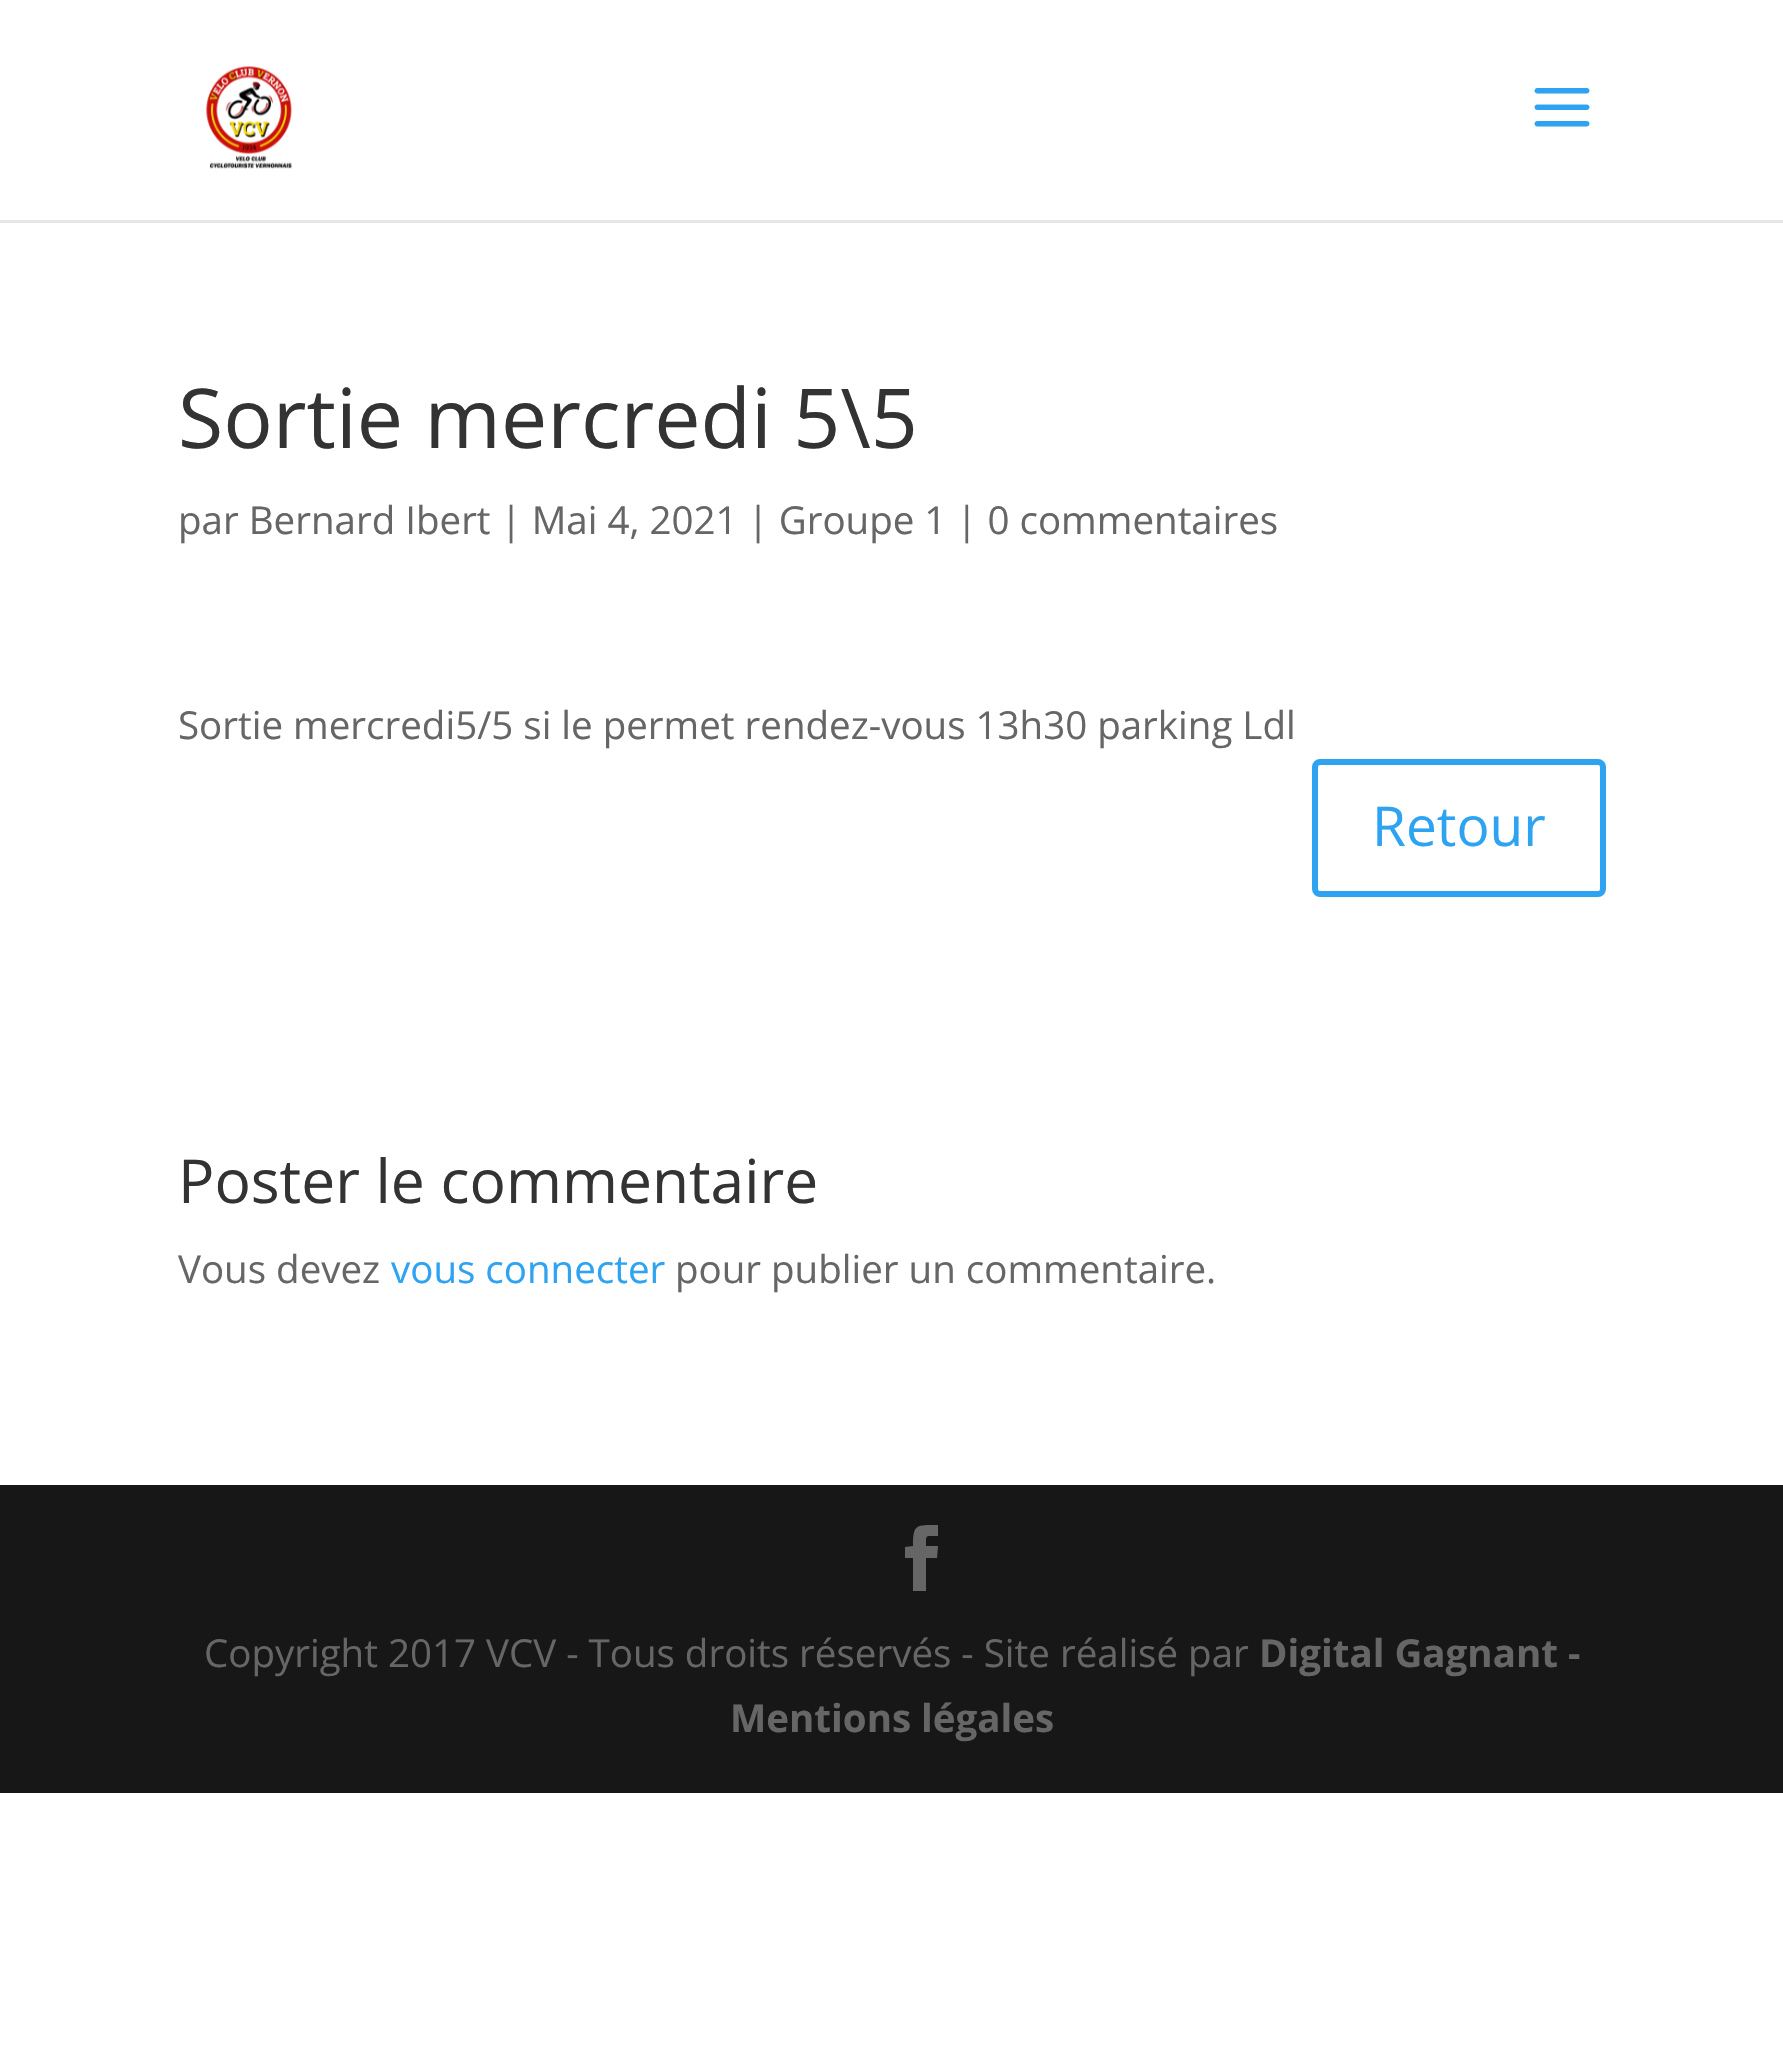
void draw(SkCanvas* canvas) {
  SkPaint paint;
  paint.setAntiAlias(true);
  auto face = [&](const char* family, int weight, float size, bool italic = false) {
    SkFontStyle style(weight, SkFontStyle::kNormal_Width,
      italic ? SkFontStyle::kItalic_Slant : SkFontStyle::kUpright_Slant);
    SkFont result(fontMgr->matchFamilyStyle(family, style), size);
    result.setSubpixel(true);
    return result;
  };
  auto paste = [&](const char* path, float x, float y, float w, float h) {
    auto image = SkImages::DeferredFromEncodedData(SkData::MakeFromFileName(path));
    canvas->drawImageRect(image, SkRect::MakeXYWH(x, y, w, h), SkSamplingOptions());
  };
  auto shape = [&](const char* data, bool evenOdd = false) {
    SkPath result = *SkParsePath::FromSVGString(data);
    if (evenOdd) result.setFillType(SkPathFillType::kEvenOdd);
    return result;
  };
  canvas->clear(0xffffffff);
  paint.setColor(0xffe6e6e6);
  canvas->drawPath(shape("M0 220V223H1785V3V220Z"), paint);
  paste("img/1.png", 206, 66, 86, 103);
  paste("img/2.png", 1534, 88, 56, 39);
  paint.setStroke(true);
  paint.setStrokeWidth(6);
  paint.setColor(0xff2ea3f2);
  canvas->drawRoundRect(SkRect::MakeXYWH(1315, 762, 288, 132), 5, 5, paint);
  paint.setStroke(false);
  paint.setColor(0xff171717);
  canvas->drawRect(SkRect::MakeXYWH(0, 1485, 1783, 308), paint);
  paint.setColor(0xff666666);
  canvas->drawPath(shape("M913 1591H926V1558H937L938 1546H926C926 1534 925 1536 938 1536V1525C916 1525 913 1524 913 1546L905 1547V1558H913Z"), paint);
  auto f0 = face("Open Sans", 400, 82.5f);
  paint.setColor(0xff333333);
  canvas->drawString("Sortie mercredi 5\\5", 178, 448, f0, paint);
  auto f1 = face("Open Sans", 400, 38.5f);
  paint.setColor(0xff666666);
  canvas->drawString("par Bernard Ibert | Mai 4, 2021 | Groupe 1 | 0 commentaires", 178, 534, f1, paint);
  canvas->drawString("Sortie mercredi5/5 si le permet rendez-vous 13h30 parking Ldl", 178, 739, f1, paint);
  auto f2 = face("Open Sans", 400, 55);
  paint.setColor(0xff2ea3f2);
  canvas->drawString("Retour", 1372, 846, f2, paint);
  auto f3 = face("Open Sans", 400, 60.5f);
  paint.setColor(0xff333333);
  canvas->drawString("Poster le commentaire", 178, 1203, f3, paint);
  paint.setColor(0xff666666);
  canvas->drawString("Vous devez", 178, 1283, f1, paint);
  paint.setColor(0xff2ea3f2);
  canvas->drawString("vous connecter", 391, 1283, f1, paint);
  paint.setColor(0xff666666);
  canvas->drawString("pour publier un commentaire.", 675, 1283, f1, paint);
  canvas->drawString("Copyright 2017 VCV - Tous droits réservés - Site réalisé par", 204, 1667, f1, paint);
  auto f4 = face("Open Sans", 700, 38.5f);
  canvas->drawString("Digital Gagnant -", 1259, 1667, f4, paint);
  canvas->drawString("Mentions légales", 730, 1732, f4, paint);
}
